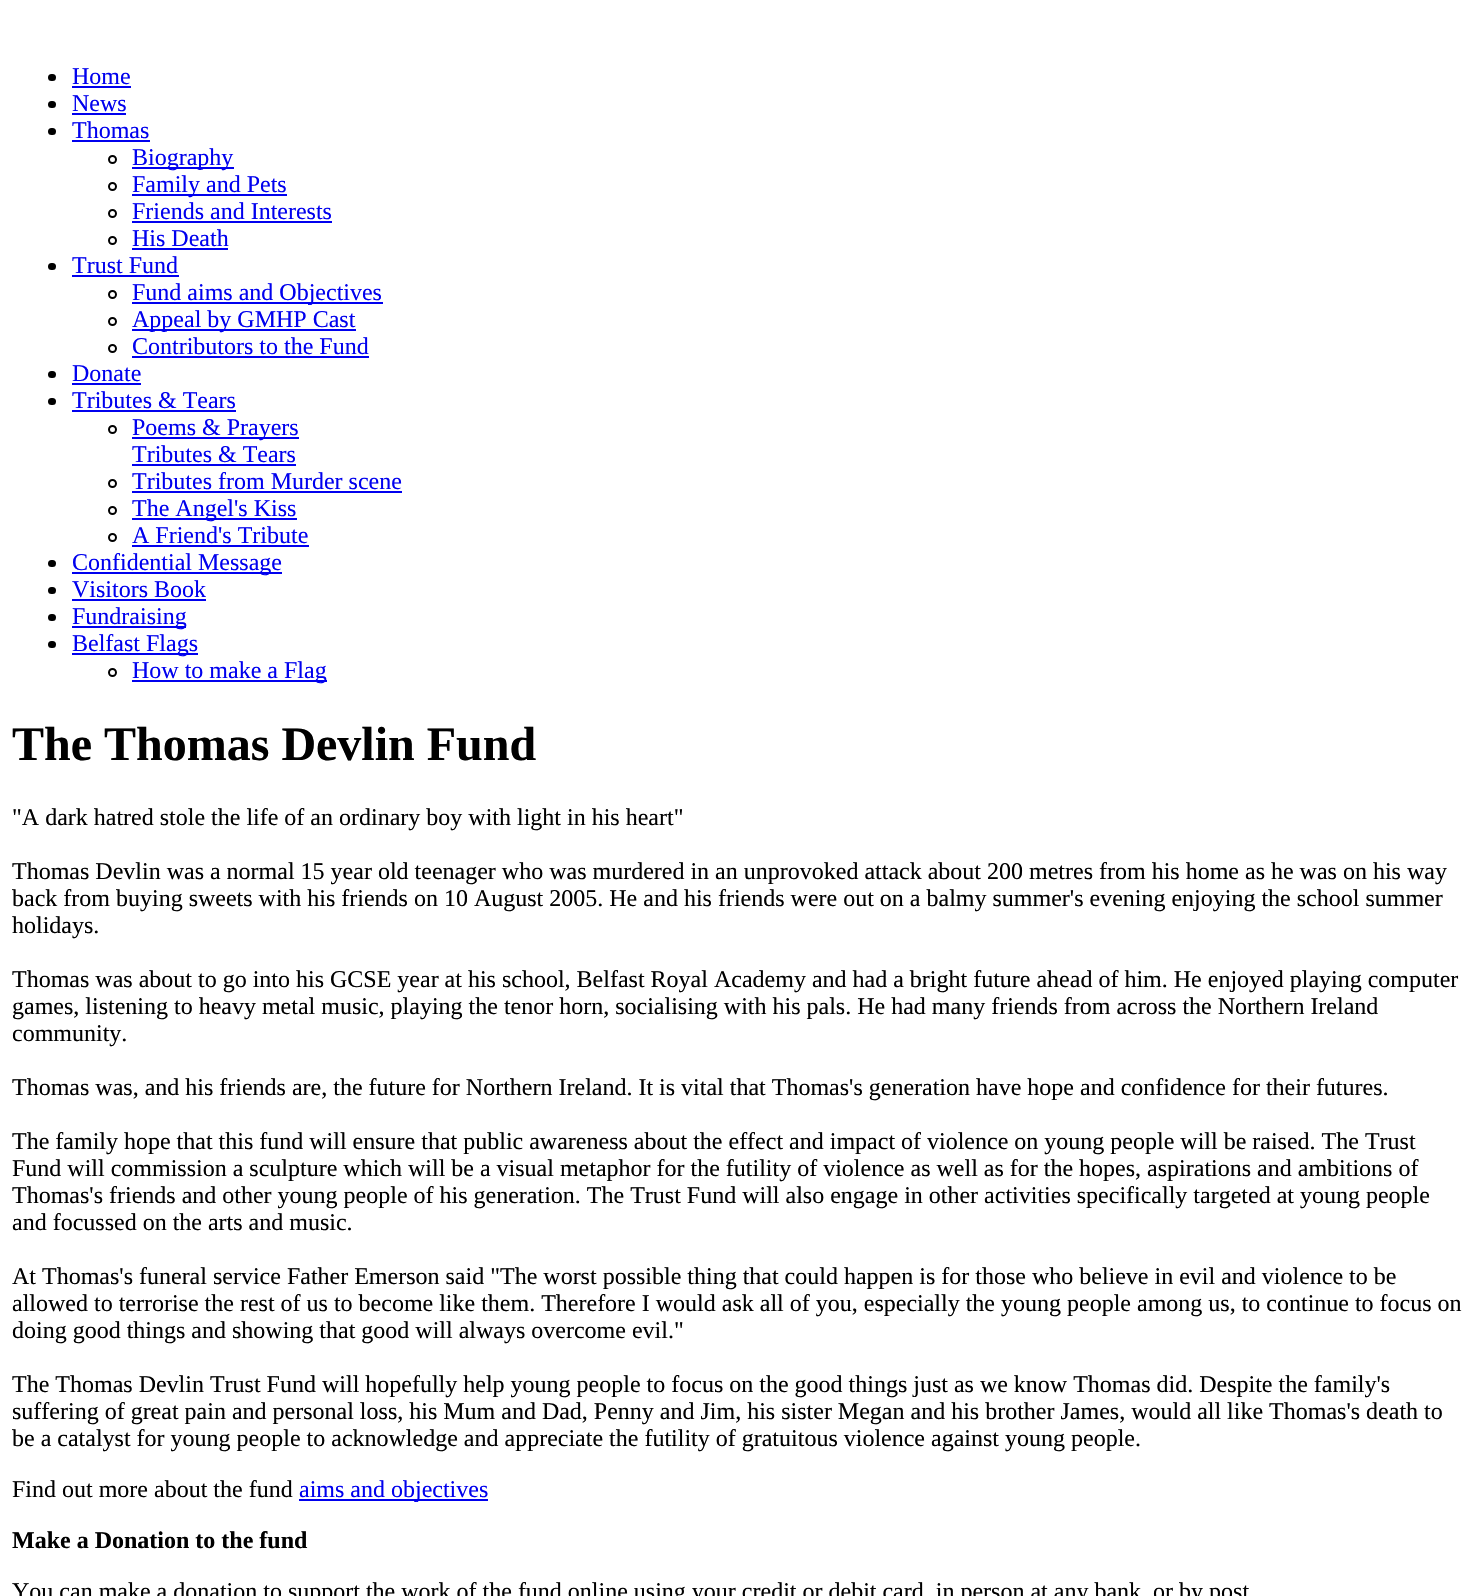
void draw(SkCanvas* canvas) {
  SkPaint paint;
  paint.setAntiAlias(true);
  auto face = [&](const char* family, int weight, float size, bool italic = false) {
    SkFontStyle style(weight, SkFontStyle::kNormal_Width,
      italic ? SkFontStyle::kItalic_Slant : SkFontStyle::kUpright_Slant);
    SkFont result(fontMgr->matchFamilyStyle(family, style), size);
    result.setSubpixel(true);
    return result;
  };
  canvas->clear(0xffffffff);
  paint.setColor(0xff000000);
  canvas->drawRoundRect(SkRect::MakeXYWH(48, 74, 8, 7), 3.5f, 3.5f, paint);
  paint.setColor(0xff0000ee);
  canvas->drawRect(SkRect::MakeXYWH(72, 86, 59, 2), paint);
  paint.setColor(0xff000000);
  canvas->drawRoundRect(SkRect::MakeXYWH(48, 101, 8, 7), 3.5f, 3.5f, paint);
  paint.setColor(0xff0000ee);
  canvas->drawRect(SkRect::MakeXYWH(72, 113, 54, 2), paint);
  paint.setColor(0xff000000);
  canvas->drawRoundRect(SkRect::MakeXYWH(48, 128, 8, 7), 3.5f, 3.5f, paint);
  paint.setColor(0xff0000ee);
  canvas->drawRect(SkRect::MakeXYWH(72, 140, 78, 2), paint);
  paint.setStroke(true);
  paint.setStrokeWidth(2);
  paint.setColor(0xff000000);
  canvas->drawCircle(112.5f, 159.5f, 3.5f, paint);
  paint.setStroke(false);
  paint.setColor(0xff0000ee);
  canvas->drawRect(SkRect::MakeXYWH(132, 167, 102, 2), paint);
  paint.setStroke(true);
  paint.setColor(0xff000000);
  canvas->drawCircle(112.5f, 186.5f, 3.5f, paint);
  paint.setStroke(false);
  paint.setColor(0xff0000ee);
  canvas->drawRect(SkRect::MakeXYWH(132, 194, 155, 2), paint);
  paint.setStroke(true);
  paint.setColor(0xff000000);
  canvas->drawCircle(112.5f, 213.5f, 3.5f, paint);
  paint.setStroke(false);
  paint.setColor(0xff0000ee);
  canvas->drawRect(SkRect::MakeXYWH(132, 221, 200, 2), paint);
  paint.setStroke(true);
  paint.setColor(0xff000000);
  canvas->drawCircle(112.5f, 240.5f, 3.5f, paint);
  paint.setStroke(false);
  paint.setColor(0xff0000ee);
  canvas->drawRect(SkRect::MakeXYWH(132, 248, 96, 2), paint);
  paint.setColor(0xff000000);
  canvas->drawRoundRect(SkRect::MakeXYWH(48, 263, 8, 7), 3.5f, 3.5f, paint);
  paint.setColor(0xff0000ee);
  canvas->drawRect(SkRect::MakeXYWH(72, 275, 107, 2), paint);
  paint.setStroke(true);
  paint.setColor(0xff000000);
  canvas->drawCircle(112.5f, 294.5f, 3.5f, paint);
  paint.setStroke(false);
  paint.setColor(0xff0000ee);
  canvas->drawRect(SkRect::MakeXYWH(132, 302, 251, 2), paint);
  paint.setStroke(true);
  paint.setColor(0xff000000);
  canvas->drawCircle(112.5f, 321.5f, 3.5f, paint);
  paint.setStroke(false);
  paint.setColor(0xff0000ee);
  canvas->drawRect(SkRect::MakeXYWH(132, 329, 224, 2), paint);
  paint.setStroke(true);
  paint.setColor(0xff000000);
  canvas->drawCircle(112.5f, 348.5f, 3.5f, paint);
  paint.setStroke(false);
  paint.setColor(0xff0000ee);
  canvas->drawRect(SkRect::MakeXYWH(132, 356, 237, 2), paint);
  paint.setColor(0xff000000);
  canvas->drawRoundRect(SkRect::MakeXYWH(48, 371, 8, 7), 3.5f, 3.5f, paint);
  paint.setColor(0xff0000ee);
  canvas->drawRect(SkRect::MakeXYWH(72, 383, 69, 2), paint);
  paint.setColor(0xff000000);
  canvas->drawRoundRect(SkRect::MakeXYWH(48, 398, 8, 7), 3.5f, 3.5f, paint);
  paint.setColor(0xff0000ee);
  canvas->drawRect(SkRect::MakeXYWH(72, 410, 164, 2), paint);
  paint.setStroke(true);
  paint.setColor(0xff000000);
  canvas->drawCircle(112.5f, 429.5f, 3.5f, paint);
  paint.setStroke(false);
  paint.setColor(0xff0000ee);
  canvas->drawRect(SkRect::MakeXYWH(132, 437, 167, 2), paint);
  canvas->drawRect(SkRect::MakeXYWH(132, 464, 164, 2), paint);
  paint.setStroke(true);
  paint.setColor(0xff000000);
  canvas->drawCircle(112.5f, 483.5f, 3.5f, paint);
  paint.setStroke(false);
  paint.setColor(0xff0000ee);
  canvas->drawRect(SkRect::MakeXYWH(132, 491, 270, 2), paint);
  paint.setStroke(true);
  paint.setColor(0xff000000);
  canvas->drawCircle(112.5f, 510.5f, 3.5f, paint);
  paint.setStroke(false);
  paint.setColor(0xff0000ee);
  canvas->drawRect(SkRect::MakeXYWH(132, 518, 165, 2), paint);
  paint.setStroke(true);
  paint.setColor(0xff000000);
  canvas->drawCircle(112.5f, 537.5f, 3.5f, paint);
  paint.setStroke(false);
  paint.setColor(0xff0000ee);
  canvas->drawRect(SkRect::MakeXYWH(132, 545, 177, 2), paint);
  paint.setColor(0xff000000);
  canvas->drawRoundRect(SkRect::MakeXYWH(48, 560, 8, 7), 3.5f, 3.5f, paint);
  paint.setColor(0xff0000ee);
  canvas->drawRect(SkRect::MakeXYWH(72, 572, 210, 2), paint);
  paint.setColor(0xff000000);
  canvas->drawRoundRect(SkRect::MakeXYWH(48, 587, 8, 7), 3.5f, 3.5f, paint);
  paint.setColor(0xff0000ee);
  canvas->drawRect(SkRect::MakeXYWH(72, 599, 134, 2), paint);
  paint.setColor(0xff000000);
  canvas->drawRoundRect(SkRect::MakeXYWH(48, 614, 8, 7), 3.5f, 3.5f, paint);
  paint.setColor(0xff0000ee);
  canvas->drawRect(SkRect::MakeXYWH(72, 626, 114, 2), paint);
  paint.setColor(0xff000000);
  canvas->drawRoundRect(SkRect::MakeXYWH(48, 641, 8, 7), 3.5f, 3.5f, paint);
  paint.setColor(0xff0000ee);
  canvas->drawRect(SkRect::MakeXYWH(72, 653, 126, 2), paint);
  paint.setStroke(true);
  paint.setColor(0xff000000);
  canvas->drawCircle(112.5f, 672.5f, 3.5f, paint);
  paint.setStroke(false);
  paint.setColor(0xff0000ee);
  canvas->drawRect(SkRect::MakeXYWH(132, 680, 195, 2), paint);
  canvas->drawRect(SkRect::MakeXYWH(299, 1499, 189, 2), paint);
  auto f0 = face("Liberation Serif", 400, 24);
  {
    const struct { const char* s; float x, y; } items[] = {
      {"Home", 72, 84},
      {"News", 72, 111},
      {"Thomas", 72, 138},
      {"Biography", 132, 165},
      {"Family and Pets", 132, 192},
      {"Friends and Interests", 132, 219},
      {"His Death", 132, 246},
      {"Trust Fund", 72, 273},
      {"Fund aims and Objectives", 132, 300},
      {"Appeal by GMHP Cast", 132, 327},
      {"Contributors to the Fund", 132, 354},
      {"Donate", 72, 381},
      {"Tributes & Tears", 72, 408},
      {"Poems & Prayers", 132, 435},
      {"Tributes & Tears", 132, 462},
      {"Tributes from Murder scene", 132, 489},
      {"The Angel's Kiss", 132, 516},
      {"A Friend's Tribute", 132, 543},
      {"Confidential Message", 72, 570},
      {"Visitors Book", 72, 597},
      {"Fundraising", 72, 624},
      {"Belfast Flags", 72, 651},
      {"How to make a Flag", 132, 678},
    };
    for (auto [s, x, y] : items) {
      canvas->drawString(s, x, y, f0, paint);
    }
  }
  auto f1 = face("Liberation Serif", 700, 48);
  paint.setColor(0xff000000);
  canvas->drawString("The Thomas Devlin Fund", 12, 760, f1, paint);
  {
    const struct { const char* s; float x, y; } items[] = {
      {"\"A dark hatred stole the life of an ordinary boy with light in his heart\"", 12, 825},
      {"Thomas Devlin was a normal 15 year old teenager who was murdered in an unprovoked attack about 200 metres from his home as he was on his way", 12, 879},
      {"back from buying sweets with his friends on 10 August 2005. He and his friends were out on a balmy summer's evening enjoying the school summer", 12, 906},
      {"holidays.", 12, 933},
      {"Thomas was about to go into his GCSE year at his school, Belfast Royal Academy and had a bright future ahead of him. He enjoyed playing computer", 12, 987},
      {"games, listening to heavy metal music, playing the tenor horn, socialising with his pals. He had many friends from across the Northern Ireland", 12, 1014},
      {"community.", 12, 1041},
      {"Thomas was, and his friends are, the future for Northern Ireland. It is vital that Thomas's generation have hope and confidence for their futures.", 12, 1095},
      {"The family hope that this fund will ensure that public awareness about the effect and impact of violence on young people will be raised. The Trust", 12, 1149},
      {"Fund will commission a sculpture which will be a visual metaphor for the futility of violence as well as for the hopes, aspirations and ambitions of", 12, 1176},
      {"Thomas's friends and other young people of his generation. The Trust Fund will also engage in other activities specifically targeted at young people", 12, 1203},
      {"and focussed on the arts and music.", 12, 1230},
      {"At Thomas's funeral service Father Emerson said \"The worst possible thing that could happen is for those who believe in evil and violence to be", 12, 1284},
      {"allowed to terrorise the rest of us to become like them. Therefore I would ask all of you, especially the young people among us, to continue to focus on", 12, 1311},
      {"doing good things and showing that good will always overcome evil.\"", 12, 1338},
      {"The Thomas Devlin Trust Fund will hopefully help young people to focus on the good things just as we know Thomas did. Despite the family's", 12, 1392},
      {"suffering of great pain and personal loss, his Mum and Dad, Penny and Jim, his sister Megan and his brother James, would all like Thomas's death to", 12, 1419},
      {"be a catalyst for young people to acknowledge and appreciate the futility of gratuitous violence against young people.", 12, 1446},
      {"Find out more about the fund", 12, 1497},
    };
    for (auto [s, x, y] : items) {
      canvas->drawString(s, x, y, f0, paint);
    }
  }
  paint.setColor(0xff0000ee);
  canvas->drawString("aims and objectives", 299, 1497, f0, paint);
  auto f2 = face("Liberation Serif", 700, 24);
  paint.setColor(0xff000000);
  canvas->drawString("Make a Donation to the fund", 12, 1548, f2, paint);
  canvas->drawString("You can make a donation to support the work of the fund online using your credit or debit card, in person at any bank, or by post", 12, 1599, f0, paint);
}
